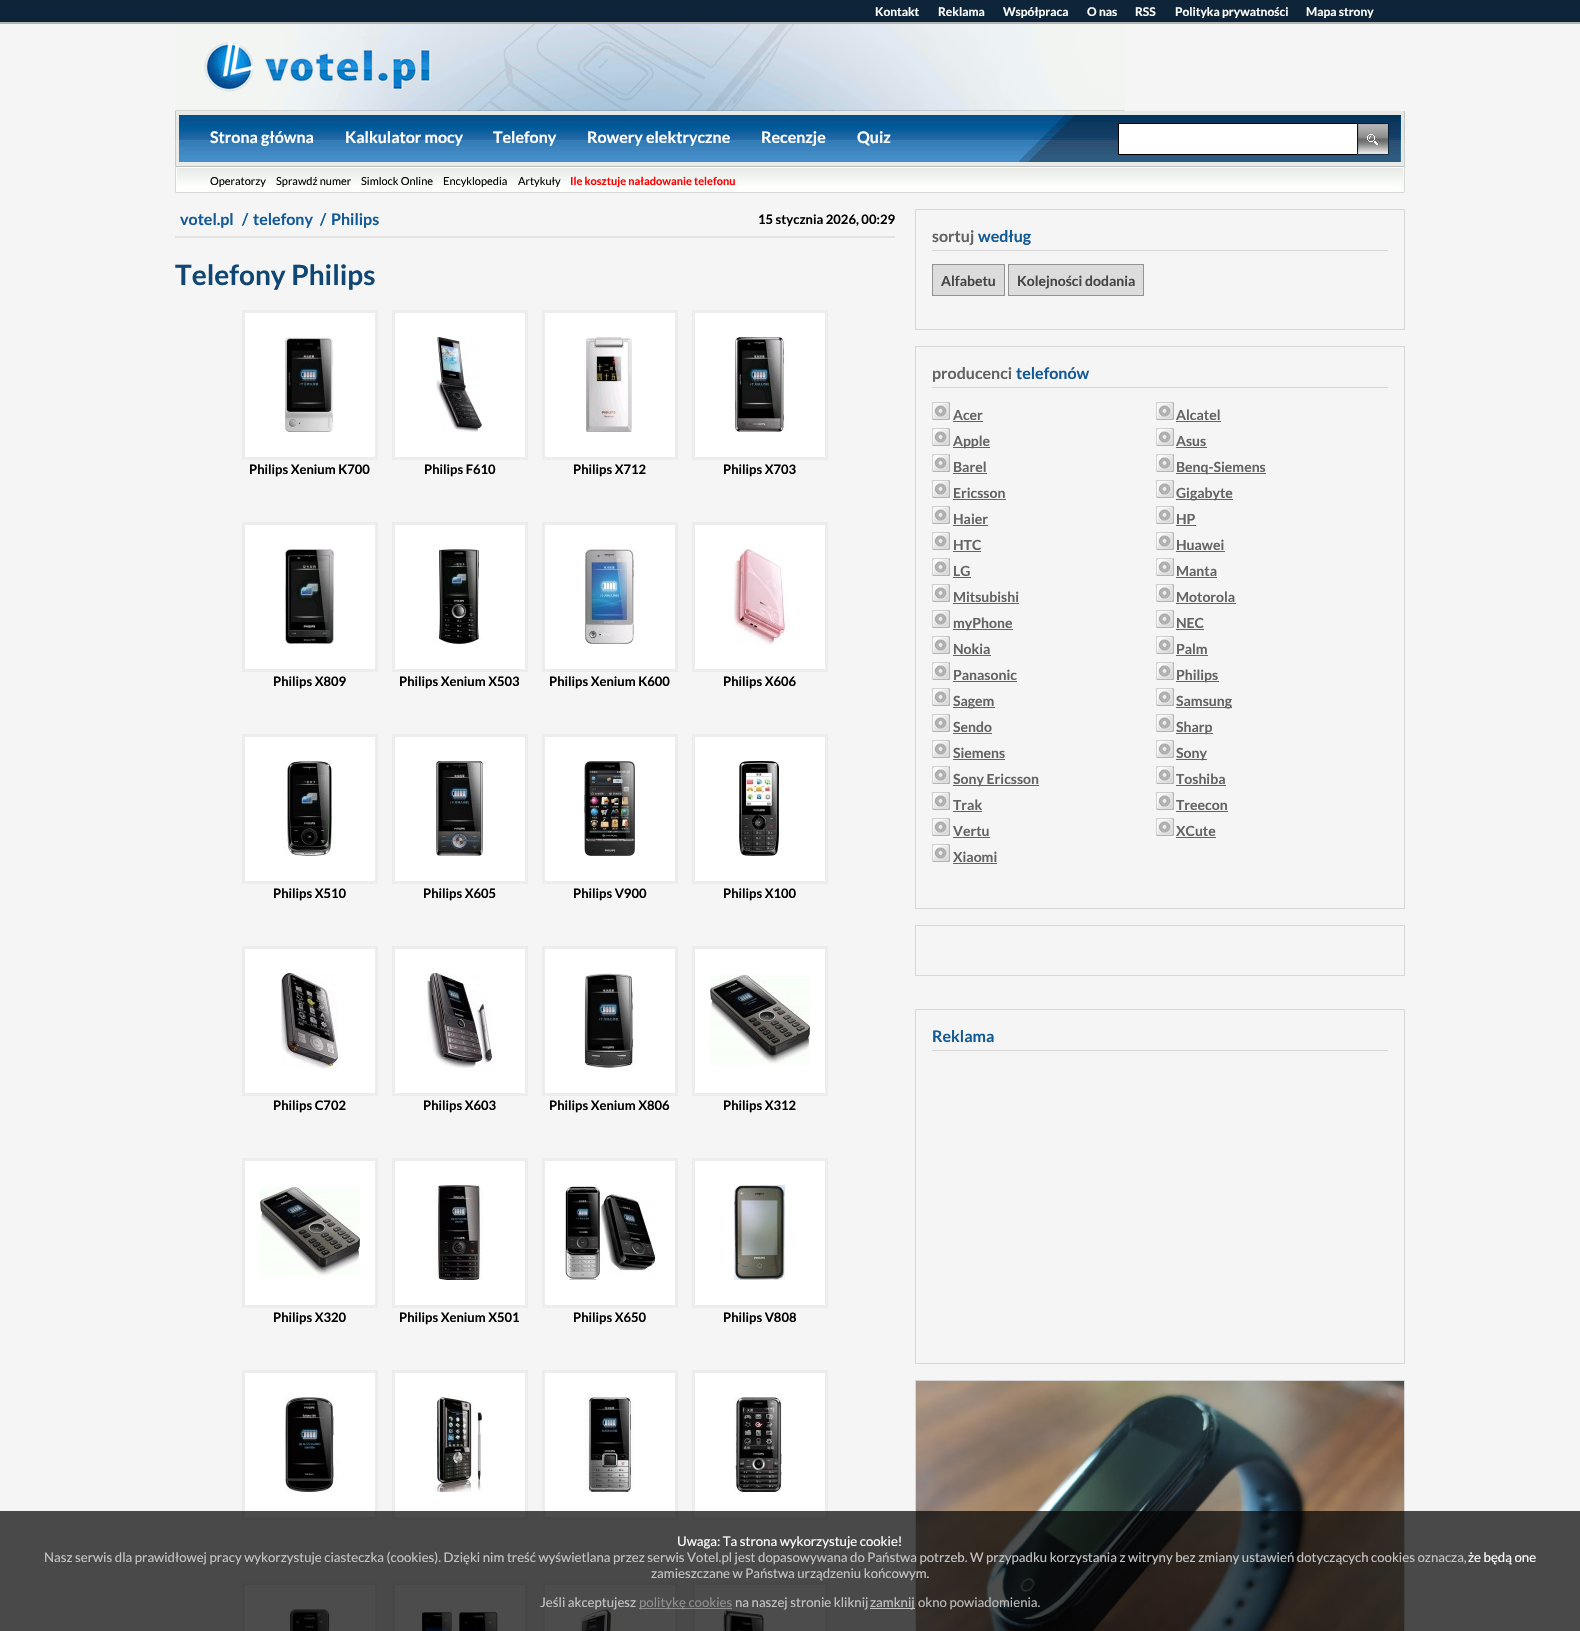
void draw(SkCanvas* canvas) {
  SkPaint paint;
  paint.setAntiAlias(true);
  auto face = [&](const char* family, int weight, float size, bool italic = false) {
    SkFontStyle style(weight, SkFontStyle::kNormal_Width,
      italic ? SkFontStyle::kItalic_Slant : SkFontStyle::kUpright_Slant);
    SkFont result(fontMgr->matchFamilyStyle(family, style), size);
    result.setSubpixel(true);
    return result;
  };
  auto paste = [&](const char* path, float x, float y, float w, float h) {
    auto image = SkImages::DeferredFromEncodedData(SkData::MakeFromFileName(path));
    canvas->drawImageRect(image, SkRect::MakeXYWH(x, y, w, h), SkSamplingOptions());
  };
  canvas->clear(0xfff5f5f5);
  paint.setColor(0xff0e2539);
  canvas->drawRect(SkRect::MakeXYWH(0, 0, 1580, 22), paint);
  paint.setColor(0xffb3b3b3);
  canvas->drawRect(SkRect::MakeXYWH(0, 22, 1580, 2), paint);
  paste("img/1.png", 175, 24, 950, 87);
  paste("img/2.png", 175, 111, 1230, 82);
  paint.setColor(0xffffffff);
  canvas->drawRect(SkRect::MakeXYWH(1118.5f, 123.5f, 239, 31), paint);
  paint.setStroke(true);
  paint.setStrokeWidth(1);
  paint.setColor(0xff000000);
  canvas->drawRect(SkRect::MakeXYWH(1118.5f, 123.5f, 239, 31), paint);
  paste("img/3.png", 1357, 123, 32, 32);
  paint.setStroke(false);
  paint.setColor(0xffe3e3e3);
  canvas->drawRect(SkRect::MakeXYWH(175, 236, 720, 2), paint);
  paint.setColor(0xffffffff);
  canvas->drawRect(SkRect::MakeXYWH(243.5f, 311.5f, 133, 147), paint);
  paint.setStroke(true);
  paint.setStrokeWidth(3);
  paint.setColor(0xffededed);
  canvas->drawRect(SkRect::MakeXYWH(243.5f, 311.5f, 133, 147), paint);
  paste("img/4.png", 284, 337, 51, 95);
  paint.setStroke(false);
  paint.setColor(0xffffffff);
  canvas->drawRect(SkRect::MakeXYWH(393.5f, 311.5f, 133, 147), paint);
  paint.setStroke(true);
  paint.setColor(0xffededed);
  canvas->drawRect(SkRect::MakeXYWH(393.5f, 311.5f, 133, 147), paint);
  paste("img/5.png", 434, 337, 48, 95);
  paint.setStroke(false);
  paint.setColor(0xffffffff);
  canvas->drawRect(SkRect::MakeXYWH(543.5f, 311.5f, 133, 147), paint);
  paint.setStroke(true);
  paint.setColor(0xffededed);
  canvas->drawRect(SkRect::MakeXYWH(543.5f, 311.5f, 133, 147), paint);
  paste("img/6.png", 585, 337, 47, 95);
  paint.setStroke(false);
  paint.setColor(0xffffffff);
  canvas->drawRect(SkRect::MakeXYWH(693.5f, 311.5f, 133, 147), paint);
  paint.setStroke(true);
  paint.setColor(0xffededed);
  canvas->drawRect(SkRect::MakeXYWH(693.5f, 311.5f, 133, 147), paint);
  paste("img/7.png", 734, 337, 54, 95);
  paint.setStroke(false);
  paint.setColor(0xffffffff);
  canvas->drawRect(SkRect::MakeXYWH(243.5f, 523.5f, 133, 147), paint);
  paint.setStroke(true);
  paint.setColor(0xffededed);
  canvas->drawRect(SkRect::MakeXYWH(243.5f, 523.5f, 133, 147), paint);
  paste("img/8.png", 284, 549, 54, 95);
  paint.setStroke(false);
  paint.setColor(0xffffffff);
  canvas->drawRect(SkRect::MakeXYWH(393.5f, 523.5f, 133, 147), paint);
  paint.setStroke(true);
  paint.setColor(0xffededed);
  canvas->drawRect(SkRect::MakeXYWH(393.5f, 523.5f, 133, 147), paint);
  paste("img/9.png", 434, 549, 48, 95);
  paint.setStroke(false);
  paint.setColor(0xffffffff);
  canvas->drawRect(SkRect::MakeXYWH(543.5f, 523.5f, 133, 147), paint);
  paint.setStroke(true);
  paint.setColor(0xffededed);
  canvas->drawRect(SkRect::MakeXYWH(543.5f, 523.5f, 133, 147), paint);
  paste("img/10.png", 584, 549, 55, 95);
  paint.setStroke(false);
  paint.setColor(0xffffffff);
  canvas->drawRect(SkRect::MakeXYWH(693.5f, 523.5f, 133, 147), paint);
  paint.setStroke(true);
  paint.setColor(0xffededed);
  canvas->drawRect(SkRect::MakeXYWH(693.5f, 523.5f, 133, 147), paint);
  paste("img/11.png", 734, 549, 56, 95);
  paint.setStroke(false);
  paint.setColor(0xffffffff);
  canvas->drawRect(SkRect::MakeXYWH(243.5f, 735.5f, 133, 147), paint);
  paint.setStroke(true);
  paint.setColor(0xffededed);
  canvas->drawRect(SkRect::MakeXYWH(243.5f, 735.5f, 133, 147), paint);
  paste("img/12.png", 284, 761, 48, 95);
  paint.setStroke(false);
  paint.setColor(0xffffffff);
  canvas->drawRect(SkRect::MakeXYWH(393.5f, 735.5f, 133, 147), paint);
  paint.setStroke(true);
  paint.setColor(0xffededed);
  canvas->drawRect(SkRect::MakeXYWH(393.5f, 735.5f, 133, 147), paint);
  paste("img/13.png", 434, 761, 55, 95);
  paint.setStroke(false);
  paint.setColor(0xffffffff);
  canvas->drawRect(SkRect::MakeXYWH(543.5f, 735.5f, 133, 147), paint);
  paint.setStroke(true);
  paint.setColor(0xffededed);
  canvas->drawRect(SkRect::MakeXYWH(543.5f, 735.5f, 133, 147), paint);
  paste("img/14.png", 584, 761, 56, 95);
  paint.setStroke(false);
  paint.setColor(0xffffffff);
  canvas->drawRect(SkRect::MakeXYWH(693.5f, 735.5f, 133, 147), paint);
  paint.setStroke(true);
  paint.setColor(0xffededed);
  canvas->drawRect(SkRect::MakeXYWH(693.5f, 735.5f, 133, 147), paint);
  paste("img/15.png", 735, 761, 47, 95);
  paint.setStroke(false);
  paint.setColor(0xffffffff);
  canvas->drawRect(SkRect::MakeXYWH(243.5f, 947.5f, 133, 147), paint);
  paint.setStroke(true);
  paint.setColor(0xffededed);
  canvas->drawRect(SkRect::MakeXYWH(243.5f, 947.5f, 133, 147), paint);
  paste("img/16.png", 276, 973, 64, 95);
  paint.setStroke(false);
  paint.setColor(0xffffffff);
  canvas->drawRect(SkRect::MakeXYWH(393.5f, 947.5f, 133, 147), paint);
  paint.setStroke(true);
  paint.setColor(0xffededed);
  canvas->drawRect(SkRect::MakeXYWH(393.5f, 947.5f, 133, 147), paint);
  paste("img/17.png", 427, 973, 71, 95);
  paint.setStroke(false);
  paint.setColor(0xffffffff);
  canvas->drawRect(SkRect::MakeXYWH(543.5f, 947.5f, 133, 147), paint);
  paint.setStroke(true);
  paint.setColor(0xffededed);
  canvas->drawRect(SkRect::MakeXYWH(543.5f, 947.5f, 133, 147), paint);
  paste("img/18.png", 584, 973, 52, 95);
  paint.setStroke(false);
  paint.setColor(0xffffffff);
  canvas->drawRect(SkRect::MakeXYWH(693.5f, 947.5f, 133, 147), paint);
  paint.setStroke(true);
  paint.setColor(0xffededed);
  canvas->drawRect(SkRect::MakeXYWH(693.5f, 947.5f, 133, 147), paint);
  paste("img/19.png", 710, 973, 100, 92);
  paint.setStroke(false);
  paint.setColor(0xffffffff);
  canvas->drawRect(SkRect::MakeXYWH(243.5f, 1159.5f, 133, 147), paint);
  paint.setStroke(true);
  paint.setColor(0xffededed);
  canvas->drawRect(SkRect::MakeXYWH(243.5f, 1159.5f, 133, 147), paint);
  paste("img/19.png", 260, 1185, 100, 92);
  paint.setStroke(false);
  paint.setColor(0xffffffff);
  canvas->drawRect(SkRect::MakeXYWH(393.5f, 1159.5f, 133, 147), paint);
  paint.setStroke(true);
  paint.setColor(0xffededed);
  canvas->drawRect(SkRect::MakeXYWH(393.5f, 1159.5f, 133, 147), paint);
  paste("img/20.png", 434, 1185, 49, 95);
  paint.setStroke(false);
  paint.setColor(0xffffffff);
  canvas->drawRect(SkRect::MakeXYWH(543.5f, 1159.5f, 133, 147), paint);
  paint.setStroke(true);
  paint.setColor(0xffededed);
  canvas->drawRect(SkRect::MakeXYWH(543.5f, 1159.5f, 133, 147), paint);
  paste("img/21.png", 560, 1185, 96, 95);
  paint.setStroke(false);
  paint.setColor(0xffffffff);
  canvas->drawRect(SkRect::MakeXYWH(693.5f, 1159.5f, 133, 147), paint);
  paint.setStroke(true);
  paint.setColor(0xffededed);
  canvas->drawRect(SkRect::MakeXYWH(693.5f, 1159.5f, 133, 147), paint);
  paste("img/22.png", 734, 1185, 56, 95);
  paint.setStroke(false);
  paint.setColor(0xffffffff);
  canvas->drawRect(SkRect::MakeXYWH(243.5f, 1371.5f, 133, 147), paint);
  paint.setStroke(true);
  paint.setColor(0xffededed);
  canvas->drawRect(SkRect::MakeXYWH(243.5f, 1371.5f, 133, 147), paint);
  paste("img/23.png", 284, 1397, 55, 95);
  paint.setStroke(false);
  paint.setColor(0xffffffff);
  canvas->drawRect(SkRect::MakeXYWH(393.5f, 1371.5f, 133, 147), paint);
  paint.setStroke(true);
  paint.setColor(0xffededed);
  canvas->drawRect(SkRect::MakeXYWH(393.5f, 1371.5f, 133, 147), paint);
  paste("img/24.png", 434, 1397, 48, 95);
  paint.setStroke(false);
  paint.setColor(0xffffffff);
  canvas->drawRect(SkRect::MakeXYWH(543.5f, 1371.5f, 133, 147), paint);
  paint.setStroke(true);
  paint.setColor(0xffededed);
  canvas->drawRect(SkRect::MakeXYWH(543.5f, 1371.5f, 133, 147), paint);
  paste("img/25.png", 584, 1397, 49, 95);
  paint.setStroke(false);
  paint.setColor(0xffffffff);
  canvas->drawRect(SkRect::MakeXYWH(693.5f, 1371.5f, 133, 147), paint);
  paint.setStroke(true);
  paint.setColor(0xffededed);
  canvas->drawRect(SkRect::MakeXYWH(693.5f, 1371.5f, 133, 147), paint);
  paste("img/26.png", 734, 1397, 48, 95);
  paint.setStroke(false);
  paint.setColor(0xffffffff);
  canvas->drawRect(SkRect::MakeXYWH(243.5f, 1583.5f, 133, 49), paint);
  paint.setStroke(true);
  paint.setColor(0xffededed);
  canvas->drawRect(SkRect::MakeXYWH(243.5f, 1583.5f, 133, 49), paint);
  paste("img/27.png", 285, 1609, 46, 22);
  paint.setStroke(false);
  paint.setColor(0xffffffff);
  canvas->drawRect(SkRect::MakeXYWH(393.5f, 1583.5f, 133, 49), paint);
  paint.setStroke(true);
  paint.setColor(0xffededed);
  canvas->drawRect(SkRect::MakeXYWH(393.5f, 1583.5f, 133, 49), paint);
  paste("img/28.png", 418, 1609, 85, 22);
  paint.setStroke(false);
  paint.setColor(0xffffffff);
  canvas->drawRect(SkRect::MakeXYWH(543.5f, 1583.5f, 133, 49), paint);
  paint.setStroke(true);
  paint.setColor(0xffededed);
  canvas->drawRect(SkRect::MakeXYWH(543.5f, 1583.5f, 133, 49), paint);
  paste("img/29.png", 578, 1609, 46, 22);
  paint.setStroke(false);
  paint.setColor(0xffffffff);
  canvas->drawRect(SkRect::MakeXYWH(693.5f, 1583.5f, 133, 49), paint);
  paint.setStroke(true);
  paint.setColor(0xffededed);
  canvas->drawRect(SkRect::MakeXYWH(693.5f, 1583.5f, 133, 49), paint);
  paste("img/30.png", 719, 1609, 47, 22);
  paint.setStrokeWidth(1);
  paint.setColor(0xffd7d7d7);
  canvas->drawRect(SkRect::MakeXYWH(915.5f, 209.5f, 489, 120), paint);
  paint.setStroke(false);
  canvas->drawRect(SkRect::MakeXYWH(932, 250, 456, 1), paint);
  paint.setColor(0xffdcdcdc);
  canvas->drawRect(SkRect::MakeXYWH(932.5f, 264.5f, 72, 31), paint);
  paint.setStroke(true);
  paint.setColor(0xff939393);
  canvas->drawRect(SkRect::MakeXYWH(932.5f, 264.5f, 72, 31), paint);
  paint.setStroke(false);
  paint.setColor(0xffdcdcdc);
  canvas->drawRect(SkRect::MakeXYWH(1008.5f, 264.5f, 135, 31), paint);
  paint.setStroke(true);
  paint.setColor(0xff939393);
  canvas->drawRect(SkRect::MakeXYWH(1008.5f, 264.5f, 135, 31), paint);
  paint.setColor(0xffd7d7d7);
  canvas->drawRect(SkRect::MakeXYWH(915.5f, 346.5f, 489, 562), paint);
  paint.setStroke(false);
  canvas->drawRect(SkRect::MakeXYWH(932, 387, 456, 1), paint);
  paste("img/31.png", 932, 402, 18, 18);
  paint.setColor(0xff636363);
  canvas->drawRect(SkRect::MakeXYWH(953, 421, 30, 1), paint);
  paste("img/31.png", 1156, 402, 18, 18);
  canvas->drawRect(SkRect::MakeXYWH(1176, 421, 45, 1), paint);
  paste("img/31.png", 932, 428, 18, 18);
  canvas->drawRect(SkRect::MakeXYWH(953, 447, 37, 1), paint);
  paste("img/31.png", 1156, 428, 18, 18);
  canvas->drawRect(SkRect::MakeXYWH(1176, 447, 31, 1), paint);
  paste("img/31.png", 932, 454, 18, 18);
  canvas->drawRect(SkRect::MakeXYWH(953, 473, 34, 1), paint);
  paste("img/31.png", 1156, 454, 18, 18);
  canvas->drawRect(SkRect::MakeXYWH(1176, 473, 90, 1), paint);
  paste("img/31.png", 932, 480, 18, 18);
  canvas->drawRect(SkRect::MakeXYWH(953, 499, 53, 1), paint);
  paste("img/31.png", 1156, 480, 18, 18);
  canvas->drawRect(SkRect::MakeXYWH(1176, 499, 57, 1), paint);
  paste("img/31.png", 932, 506, 18, 18);
  canvas->drawRect(SkRect::MakeXYWH(953, 525, 35, 1), paint);
  paste("img/31.png", 1156, 506, 18, 18);
  canvas->drawRect(SkRect::MakeXYWH(1176, 525, 20, 1), paint);
  paste("img/31.png", 932, 532, 18, 18);
  canvas->drawRect(SkRect::MakeXYWH(953, 551, 28, 1), paint);
  paste("img/31.png", 1156, 532, 18, 18);
  canvas->drawRect(SkRect::MakeXYWH(1176, 551, 49, 1), paint);
  paste("img/31.png", 932, 558, 18, 18);
  canvas->drawRect(SkRect::MakeXYWH(953, 577, 18, 1), paint);
  paste("img/31.png", 1156, 558, 18, 18);
  canvas->drawRect(SkRect::MakeXYWH(1176, 577, 41, 1), paint);
  paste("img/31.png", 932, 584, 18, 18);
  canvas->drawRect(SkRect::MakeXYWH(953, 603, 66, 1), paint);
  paste("img/31.png", 1156, 584, 18, 18);
  canvas->drawRect(SkRect::MakeXYWH(1176, 603, 60, 1), paint);
  paste("img/31.png", 932, 610, 18, 18);
  canvas->drawRect(SkRect::MakeXYWH(953, 629, 60, 1), paint);
  paste("img/31.png", 1156, 610, 18, 18);
  canvas->drawRect(SkRect::MakeXYWH(1176, 629, 28, 1), paint);
  paste("img/31.png", 932, 636, 18, 18);
  canvas->drawRect(SkRect::MakeXYWH(953, 655, 38, 1), paint);
  paste("img/31.png", 1156, 636, 18, 18);
  canvas->drawRect(SkRect::MakeXYWH(1176, 655, 32, 1), paint);
  paste("img/31.png", 932, 662, 18, 18);
  canvas->drawRect(SkRect::MakeXYWH(953, 681, 64, 1), paint);
  paste("img/31.png", 1156, 662, 18, 18);
  canvas->drawRect(SkRect::MakeXYWH(1176, 681, 43, 1), paint);
  paste("img/31.png", 932, 688, 18, 18);
  canvas->drawRect(SkRect::MakeXYWH(953, 707, 42, 1), paint);
  paste("img/31.png", 1156, 688, 18, 18);
  canvas->drawRect(SkRect::MakeXYWH(1176, 707, 56, 1), paint);
  paste("img/31.png", 932, 714, 18, 18);
  canvas->drawRect(SkRect::MakeXYWH(953, 733, 39, 1), paint);
  paste("img/31.png", 1156, 714, 18, 18);
  canvas->drawRect(SkRect::MakeXYWH(1176, 733, 37, 1), paint);
  paste("img/31.png", 932, 740, 18, 18);
  canvas->drawRect(SkRect::MakeXYWH(953, 759, 52, 1), paint);
  paste("img/31.png", 1156, 740, 18, 18);
  canvas->drawRect(SkRect::MakeXYWH(1176, 759, 31, 1), paint);
  paste("img/31.png", 932, 766, 18, 18);
  canvas->drawRect(SkRect::MakeXYWH(953, 785, 86, 1), paint);
  paste("img/31.png", 1156, 766, 18, 18);
  canvas->drawRect(SkRect::MakeXYWH(1176, 785, 50, 1), paint);
  paste("img/31.png", 932, 792, 18, 18);
  canvas->drawRect(SkRect::MakeXYWH(953, 811, 29, 1), paint);
  paste("img/31.png", 1156, 792, 18, 18);
  canvas->drawRect(SkRect::MakeXYWH(1176, 811, 52, 1), paint);
  paste("img/31.png", 932, 818, 18, 18);
  canvas->drawRect(SkRect::MakeXYWH(953, 837, 37, 1), paint);
  paste("img/31.png", 1156, 818, 18, 18);
  canvas->drawRect(SkRect::MakeXYWH(1176, 837, 40, 1), paint);
  paste("img/31.png", 932, 844, 18, 18);
  canvas->drawRect(SkRect::MakeXYWH(953, 863, 44, 1), paint);
  paint.setStroke(true);
  paint.setColor(0xffd7d7d7);
  canvas->drawRect(SkRect::MakeXYWH(915.5f, 925.5f, 489, 50), paint);
  canvas->drawRect(SkRect::MakeXYWH(915.5f, 1009.5f, 489, 354), paint);
  paint.setStroke(false);
  canvas->drawRect(SkRect::MakeXYWH(932, 1050, 456, 1), paint);
  paint.setStroke(true);
  canvas->drawRect(SkRect::MakeXYWH(915.5f, 1380.5f, 489, 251), paint);
  paste("img/32.png", 916, 1381, 488, 250);
  paint.setStroke(false);
  {
    const struct { float x, y, w, h; SkColor color; } items[] = {
      {0, 1511, 1580, 120, 0xb3000000},
      {639, 1608, 93, 1, 0xb3ababab},
      {870, 1608, 45, 1, 0xffc1c1c1},
    };
    for (auto [x, y, w, h, color] : items) {
      paint.setColor(color);
      canvas->drawRect(SkRect::MakeXYWH(x, y, w, h), paint);
    }
  }
  auto f0 = face("Lato", 700, 12);
  paint.setColor(0xffffffff);
  {
    const struct { const char* s; float x, y; } items[] = {
      {"Kontakt", 875, 16},
      {"Reklama", 938, 16},
      {"Współpraca", 1003, 16},
      {"O nas", 1087, 16},
      {"RSS", 1135, 16},
      {"Polityka prywatności", 1175, 16},
      {"Mapa strony", 1306, 16},
    };
    for (auto [s, x, y] : items) {
      canvas->drawString(s, x, y, f0, paint);
    }
  }
  auto f1 = face("Lato", 700, 16);
  {
    const struct { const char* s; float x, y; } items[] = {
      {"Strona główna", 210, 143},
      {"Kalkulator mocy", 345, 143},
      {"Telefony", 493, 143},
      {"Rowery elektryczne", 587, 143},
      {"Recenzje", 761, 143},
      {"Quiz", 857, 143},
    };
    for (auto [s, x, y] : items) {
      canvas->drawString(s, x, y, f1, paint);
    }
  }
  auto f2 = face("Lato", 400, 11);
  paint.setColor(0xff000000);
  {
    const struct { const char* s; float x, y; } items[] = {
      {"Operatorzy", 210, 185},
      {"Sprawdź numer", 276, 185},
      {"Simlock Online", 361, 185},
      {"Encyklopedia", 443, 185},
      {"Artykuły", 518, 185},
    };
    for (auto [s, x, y] : items) {
      canvas->drawString(s, x, y, f2, paint);
    }
  }
  auto f3 = face("Lato", 700, 11);
  paint.setColor(0xffff0000);
  canvas->drawString("Ile kosztuje naładowanie telefonu", 570, 185, f3, paint);
  paint.setColor(0xff125a97);
  {
    const struct { const char* s; float x, y; } items[] = {
      {"votel.pl", 180, 225},
      {"/", 242, 225},
      {"telefony", 253, 225},
      {"/", 320, 225},
      {"Philips", 331, 225},
    };
    for (auto [s, x, y] : items) {
      canvas->drawString(s, x, y, f1, paint);
    }
  }
  auto f4 = face("Lato", 700, 13);
  paint.setColor(0xff000000);
  canvas->drawString("15 stycznia 2026, 00:29", 758, 224, f4, paint);
  auto f5 = face("Lato", 700, 28);
  paint.setColor(0xff104674);
  canvas->drawString("Telefony Philips", 175, 285, f5, paint);
  paint.setColor(0xff000000);
  {
    const struct { const char* s; float x, y; } items[] = {
      {"Philips Xenium K700", 249, 474},
      {"Philips F610", 424, 474},
      {"Philips X712", 573, 474},
      {"Philips X703", 723, 474},
      {"Philips X809", 273, 686},
      {"Philips Xenium X503", 399, 686},
      {"Philips Xenium K600", 549, 686},
      {"Philips X606", 723, 686},
      {"Philips X510", 273, 898},
      {"Philips X605", 423, 898},
      {"Philips V900", 573, 898},
      {"Philips X100", 723, 898},
      {"Philips C702", 273, 1110},
      {"Philips X603", 423, 1110},
      {"Philips Xenium X806", 549, 1110},
      {"Philips X312", 723, 1110},
      {"Philips X320", 273, 1322},
      {"Philips Xenium X501", 399, 1322},
      {"Philips X650", 573, 1322},
      {"Philips V808", 723, 1322},
    };
    for (auto [s, x, y] : items) {
      canvas->drawString(s, x, y, f4, paint);
    }
  }
  paint.setColor(0xff636363);
  canvas->drawString("sortuj", 932, 242, f1, paint);
  paint.setColor(0xff125a97);
  canvas->drawString("według", 978, 242, f1, paint);
  auto f6 = face("Lato", 700, 14);
  paint.setColor(0xff444444);
  canvas->drawString("Alfabetu", 941, 286, f6, paint);
  canvas->drawString("Kolejności dodania", 1017, 286, f6, paint);
  paint.setColor(0xff636363);
  canvas->drawString("producenci", 932, 379, f1, paint);
  paint.setColor(0xff125a97);
  canvas->drawString("telefonów", 1016, 379, f1, paint);
  paint.setColor(0xff636363);
  {
    const struct { const char* s; float x, y; } items[] = {
      {"Acer", 953, 420},
      {"Alcatel", 1176, 420},
      {"Apple", 953, 446},
      {"Asus", 1176, 446},
      {"Barel", 953, 472},
      {"Benq-Siemens", 1176, 472},
      {"Ericsson", 953, 498},
      {"Gigabyte", 1176, 498},
      {"Haier", 953, 524},
      {"HP", 1176, 524},
      {"HTC", 953, 550},
      {"Huawei", 1176, 550},
      {"LG", 953, 576},
      {"Manta", 1176, 576},
      {"Mitsubishi", 953, 602},
      {"Motorola", 1176, 602},
      {"myPhone", 953, 628},
      {"NEC", 1176, 628},
      {"Nokia", 953, 654},
      {"Palm", 1176, 654},
      {"Panasonic", 953, 680},
      {"Philips", 1176, 680},
      {"Sagem", 953, 706},
      {"Samsung", 1176, 706},
      {"Sendo", 953, 732},
      {"Sharp", 1176, 732},
      {"Siemens", 953, 758},
      {"Sony", 1176, 758},
      {"Sony Ericsson", 953, 784},
      {"Toshiba", 1176, 784},
      {"Trak", 953, 810},
      {"Treecon", 1176, 810},
      {"Vertu", 953, 836},
      {"XCute", 1176, 836},
      {"Xiaomi", 953, 862},
    };
    for (auto [s, x, y] : items) {
      canvas->drawString(s, x, y, f6, paint);
    }
  }
  paint.setColor(0xff125a97);
  canvas->drawString("Reklama", 932, 1042, f1, paint);
  auto f7 = face("Lato", 400, 13.2f);
  paint.setColor(0xffffffff);
  canvas->drawString("Uwaga: Ta strona wykorzystuje cookie!", 677, 1546, f7, paint);
  paint.setColor(0xffc5c4c4);
  canvas->drawString("Nasz serwis dla prawidłowej pracy wykorzystuje ciasteczka (cookies). Dzięki nim treść wyświetlana przez serwis Votel.pl jest dopasowywana do Państwa potrzeb. W przypadku korzystania z witryny bez zmiany ustawień dotyczących cookies oznacza,", 44, 1562, f7, paint);
  paint.setColor(0xffffffff);
  canvas->drawString("że będą one", 1468, 1562, f7, paint);
  paint.setColor(0xffc5c4c4);
  canvas->drawString("zamieszczane w Państwa urządzeniu końcowym.", 651, 1578, f7, paint);
  canvas->drawString("Jeśli akceptujesz", 540, 1607, f7, paint);
  paint.setColor(0xff8f8f8f);
  canvas->drawString("politykę cookies", 639, 1607, f7, paint);
  paint.setColor(0xffc5c4c4);
  canvas->drawString("na naszej stronie kliknij", 735, 1607, f7, paint);
  canvas->drawString("zamknij", 870, 1607, f7, paint);
  paint.setColor(0xffbfbebe);
  canvas->drawString("okno powiadomienia.", 918, 1607, f7, paint);
}
